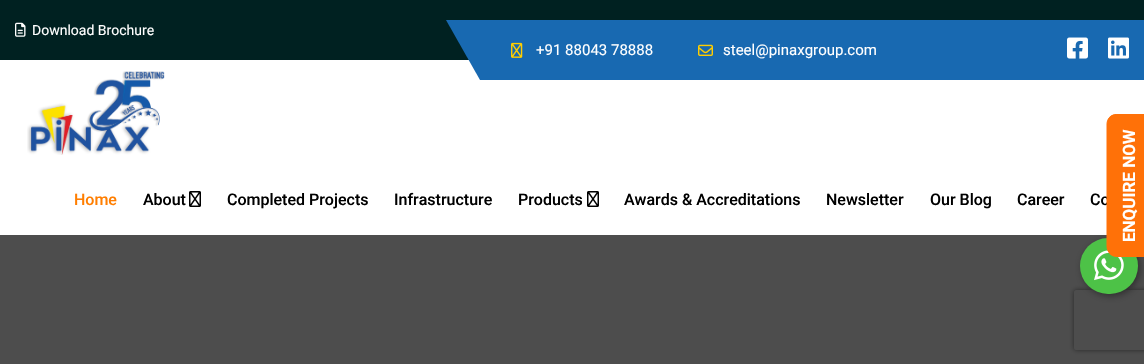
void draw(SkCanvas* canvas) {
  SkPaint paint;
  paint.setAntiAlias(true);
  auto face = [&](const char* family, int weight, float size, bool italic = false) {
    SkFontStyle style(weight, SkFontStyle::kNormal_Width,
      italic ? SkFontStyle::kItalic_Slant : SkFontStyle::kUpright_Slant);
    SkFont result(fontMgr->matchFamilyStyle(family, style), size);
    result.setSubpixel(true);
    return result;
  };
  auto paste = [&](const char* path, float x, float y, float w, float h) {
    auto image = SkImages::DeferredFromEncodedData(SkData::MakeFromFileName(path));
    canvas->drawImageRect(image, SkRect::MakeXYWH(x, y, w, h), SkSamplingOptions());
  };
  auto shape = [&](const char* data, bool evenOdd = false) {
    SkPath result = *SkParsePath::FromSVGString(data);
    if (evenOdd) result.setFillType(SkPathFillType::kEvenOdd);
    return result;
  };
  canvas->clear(0xffffffff);
  paint.setColor(0xff4d4d4d);
  canvas->drawRect(SkRect::MakeXYWH(0, 235, 1144, 129), paint);
  paint.setColor(0xff002121);
  canvas->drawRect(SkRect::MakeXYWH(0, 0, 1144, 60), paint);
  paste("img/1.png", 15, 22, 11, 15);
  paint.setColor(0xff1869b1);
  canvas->drawPath(shape("M446 20H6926L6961 80H480Z"), paint);
  paste("img/2.png", 511, 42, 12, 16);
  paste("img/3.png", 698, 44, 15, 12);
  paste("img/4.png", 1067, 37, 21, 22);
  paste("img/5.png", 1108, 37, 21, 22);
  paste("img/6.png", 27, 71, 138, 84);
  paste("img/7.png", 189, 191, 12, 16);
  paste("img/7.png", 587, 191, 12, 16);
  paint.setColor(0x66000000);
  paint.setMaskFilter(SkMaskFilter::MakeBlur(kNormal_SkBlurStyle, 3.5f));
  canvas->drawRoundRect(SkRect::MakeXYWH(1082, 240, 58, 56), 28, 28, paint);
  paint.setMaskFilter(nullptr);
  canvas->save();
  canvas->clipPath(shape("M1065 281H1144V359H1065ZM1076 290H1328C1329 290 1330 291 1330 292V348C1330 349 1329 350 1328 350H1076C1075 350 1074 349 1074 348V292C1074 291 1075 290 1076 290Z", true), true);
  paint.setColor(0xff262626);
  paint.setMaskFilter(SkMaskFilter::MakeBlur(kNormal_SkBlurStyle, 2.5f));
  canvas->drawRoundRect(SkRect::MakeXYWH(1074, 290, 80, 60), 2, 2, paint);
  paint.setMaskFilter(nullptr);
  canvas->restore();
  paint.setColor(0xff4dc247);
  canvas->drawRoundRect(SkRect::MakeXYWH(1080, 238, 58, 56), 28, 28, paint);
  paste("img/8.png", 1094, 250, 30, 31);
  auto f0 = face("Roboto", 400, 14);
  paint.setColor(0xffffffff);
  canvas->drawString("Download Brochure", 32, 35, f0, paint);
  auto f1 = face("Roboto", 400, 15);
  canvas->drawString("+91 88043 78888", 536, 55, f1, paint);
  canvas->drawString("steel@pinaxgroup.com", 723, 55, f1, paint);
  auto f2 = face("Roboto", 500, 16);
  paint.setColor(0xffff7e00);
  canvas->drawString("Home", 74, 205, f2, paint);
  paint.setColor(0xff000000);
  {
    const struct { const char* s; float x, y; } items[] = {
      {"About", 143, 205},
      {"Completed Projects", 227, 205},
      {"Infrastructure", 394, 205},
      {"Products", 518, 205},
      {"Awards & Accreditations", 624, 205},
      {"Newsletter", 826, 205},
      {"Our Blog", 930, 205},
      {"Career", 1017, 205},
      {"Co", 1090, 205},
    };
    for (auto [s, x, y] : items) {
      canvas->drawString(s, x, y, f2, paint);
    }
  }
  paint.setColor(0xffff7108);
  canvas->drawPath(shape("M1107 247V124C1107 118 1111 114 1117 114H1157V257H1117C1111 257 1107 252 1107 247Z"), paint);
  paint.setStroke(true);
  paint.setStrokeWidth(1);
  canvas->drawPath(shape("M1107 246.5V124C1107 118.5 1111.5 114.5 1116.5 114.5H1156V256H1116.5C1111.5 256 1107 252 1107 246.5Z"), paint);
  auto f3 = face("Roboto", 700, 17);
  paint.setStroke(false);
  paint.setColor(0xffffffff);
  canvas->save();
  canvas->rotate(-90, 1135, 242);
  canvas->drawString("ENQUIRE NOW", 1135, 242, f3, paint);
  canvas->restore();
}
